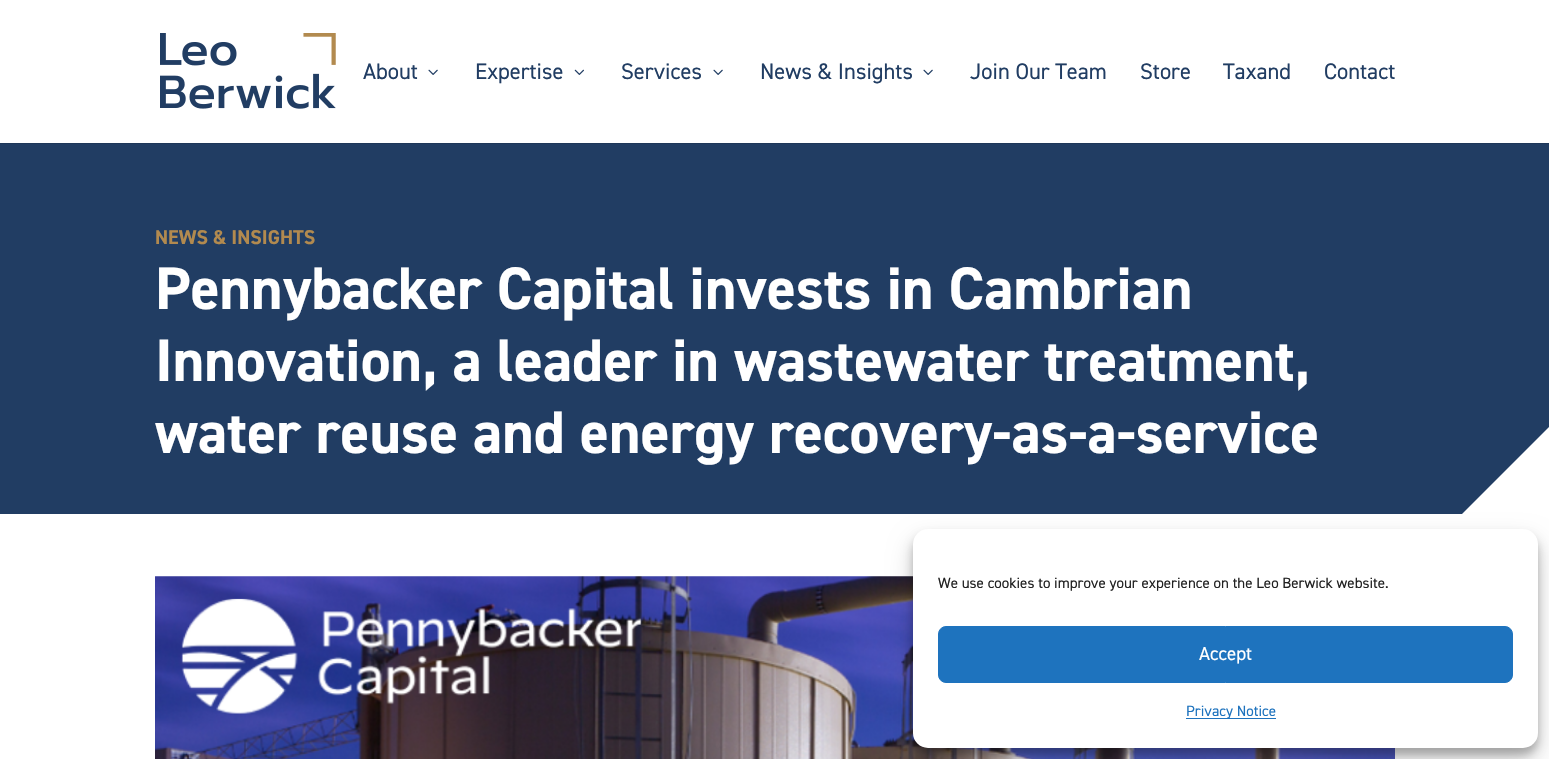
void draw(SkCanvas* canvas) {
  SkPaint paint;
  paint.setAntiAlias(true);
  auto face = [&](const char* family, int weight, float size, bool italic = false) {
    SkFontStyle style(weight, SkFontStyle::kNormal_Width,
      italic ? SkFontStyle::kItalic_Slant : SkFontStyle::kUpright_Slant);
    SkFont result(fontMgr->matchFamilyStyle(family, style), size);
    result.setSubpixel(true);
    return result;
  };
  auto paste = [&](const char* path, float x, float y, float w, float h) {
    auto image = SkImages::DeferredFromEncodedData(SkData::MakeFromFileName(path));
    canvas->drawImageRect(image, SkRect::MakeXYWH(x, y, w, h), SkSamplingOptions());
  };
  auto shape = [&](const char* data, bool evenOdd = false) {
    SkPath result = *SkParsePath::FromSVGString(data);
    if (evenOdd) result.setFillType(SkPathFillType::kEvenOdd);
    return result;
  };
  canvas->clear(0xffffffff);
  paint.setColor(0xff1e3759);
  canvas->drawRect(SkRect::MakeXYWH(0, 143, 1549, 1), paint);
  paste("img/1.png", 160, 33, 176, 76);
  paste("img/2.png", 428, 69, 10, 6);
  paste("img/3.png", 574, 69, 10, 6);
  paste("img/2.png", 713, 69, 10, 6);
  paste("img/2.png", 923, 69, 10, 6);
  paint.setColor(0xff213d63);
  canvas->drawRect(SkRect::MakeXYWH(0, 144, 1549, 370), paint);
  paint.setColor(0xffffffff);
  canvas->drawPath(shape("M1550 514H1462L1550 426Z"), paint);
  paste("img/4.png", 155, 576, 1240, 183);
  paint.setColor(0x3b000000);
  paint.setMaskFilter(SkMaskFilter::MakeBlur(kNormal_SkBlurStyle, 4));
  canvas->drawRoundRect(SkRect::MakeXYWH(913, 536, 625, 219), 15, 15, paint);
  paint.setMaskFilter(nullptr);
  paint.setColor(0x30000000);
  paint.setMaskFilter(SkMaskFilter::MakeBlur(kNormal_SkBlurStyle, 12.5f));
  canvas->drawRoundRect(SkRect::MakeXYWH(913, 541, 625, 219), 15, 15, paint);
  paint.setMaskFilter(nullptr);
  paint.setColor(0xffffffff);
  canvas->drawRoundRect(SkRect::MakeXYWH(913, 529, 625, 219), 15, 15, paint);
  paint.setColor(0xff1e73be);
  canvas->drawRoundRect(SkRect::MakeXYWH(938.5f, 626.5f, 574, 56), 7.5f, 7.5f, paint);
  paint.setStroke(true);
  paint.setStrokeWidth(1);
  canvas->drawRoundRect(SkRect::MakeXYWH(938.5f, 626.5f, 574, 56), 7.5f, 7.5f, paint);
  paint.setStroke(false);
  canvas->drawRect(SkRect::MakeXYWH(1186, 718, 90, 1), paint);
  auto f0 = face("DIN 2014", 400, 22.5f);
  paint.setColor(0xff213d63);
  {
    const struct { const char* s; float x, y; } items[] = {
      {"About", 363, 79},
      {"Expertise", 475, 79},
      {"Services", 621, 79},
      {"News & Insights", 760, 79},
      {"Join Our Team", 970, 79},
      {"Store", 1140, 79},
      {"Taxand", 1223, 79},
      {"Contact", 1324, 79},
    };
    for (auto [s, x, y] : items) {
      canvas->drawString(s, x, y, f0, paint);
    }
  }
  auto f1 = face("DIN 2014", 700, 20);
  paint.setColor(0xffb28a4f);
  canvas->drawString("NEWS & INSIGHTS", 155, 244, f1, paint);
  auto f2 = face("DIN 2014", 700, 60);
  paint.setColor(0xffffffff);
  {
    const struct { const char* s; float x, y; } items[] = {
      {"Pennybacker Capital invests in Cambrian", 155, 309},
      {"Innovation, a leader in wastewater treatment,", 155, 381},
      {"water reuse and energy recovery-as-a-service", 155, 453},
    };
    for (auto [s, x, y] : items) {
      canvas->drawString(s, x, y, f2, paint);
    }
  }
  auto f3 = face("DIN 2014", 400, 15);
  paint.setColor(0xff222222);
  canvas->drawString("We use cookies to improve your experience on the Leo Berwick website.", 938, 588, f3, paint);
  auto f4 = face("DIN 2014", 400, 19);
  paint.setColor(0xffffffff);
  canvas->drawString("Accept", 1199, 660, f4, paint);
  paint.setColor(0xff1e73be);
  canvas->drawString("Privacy Notice", 1186, 716, f3, paint);
}
